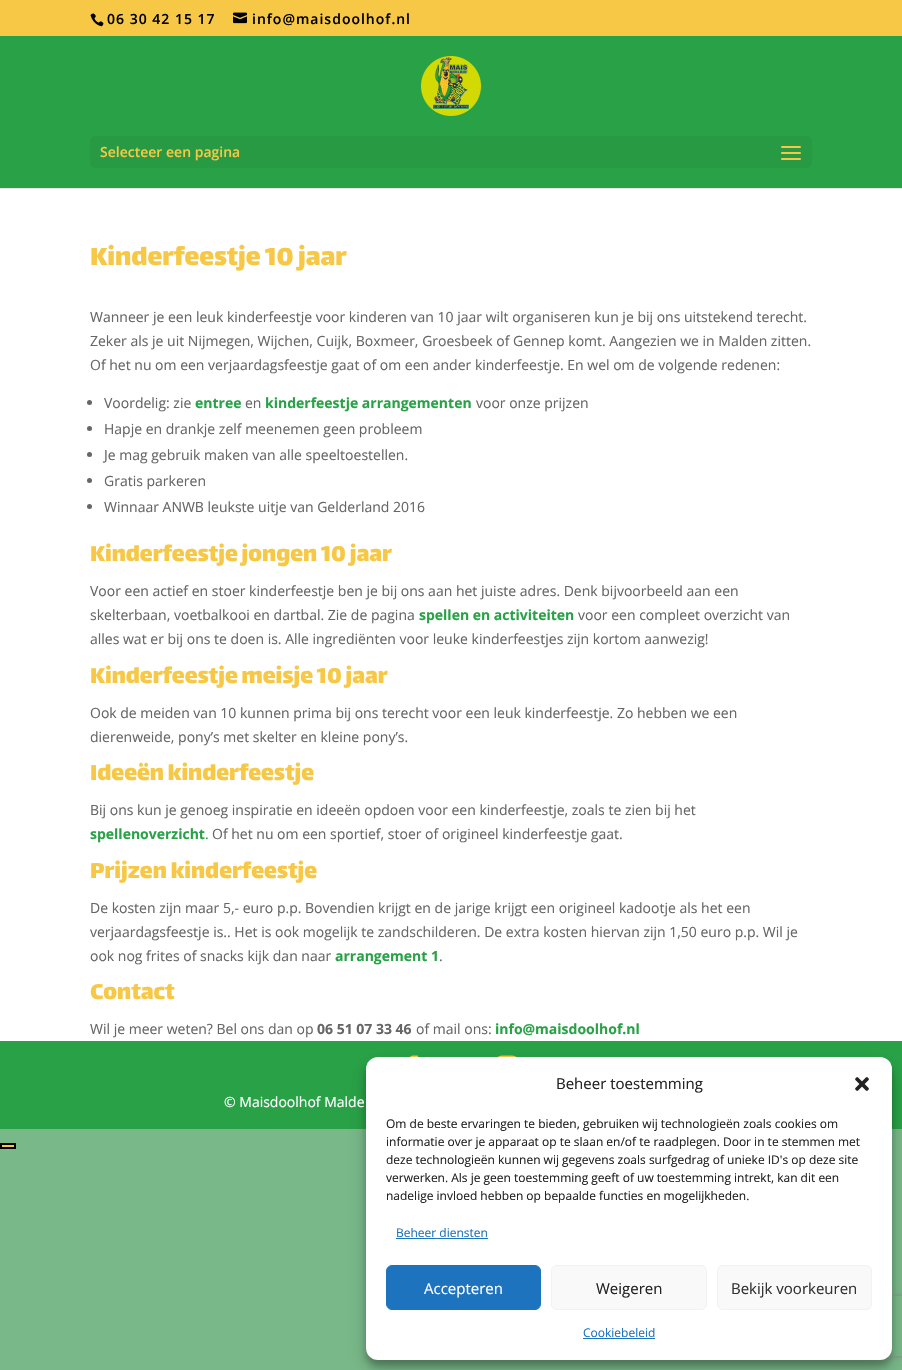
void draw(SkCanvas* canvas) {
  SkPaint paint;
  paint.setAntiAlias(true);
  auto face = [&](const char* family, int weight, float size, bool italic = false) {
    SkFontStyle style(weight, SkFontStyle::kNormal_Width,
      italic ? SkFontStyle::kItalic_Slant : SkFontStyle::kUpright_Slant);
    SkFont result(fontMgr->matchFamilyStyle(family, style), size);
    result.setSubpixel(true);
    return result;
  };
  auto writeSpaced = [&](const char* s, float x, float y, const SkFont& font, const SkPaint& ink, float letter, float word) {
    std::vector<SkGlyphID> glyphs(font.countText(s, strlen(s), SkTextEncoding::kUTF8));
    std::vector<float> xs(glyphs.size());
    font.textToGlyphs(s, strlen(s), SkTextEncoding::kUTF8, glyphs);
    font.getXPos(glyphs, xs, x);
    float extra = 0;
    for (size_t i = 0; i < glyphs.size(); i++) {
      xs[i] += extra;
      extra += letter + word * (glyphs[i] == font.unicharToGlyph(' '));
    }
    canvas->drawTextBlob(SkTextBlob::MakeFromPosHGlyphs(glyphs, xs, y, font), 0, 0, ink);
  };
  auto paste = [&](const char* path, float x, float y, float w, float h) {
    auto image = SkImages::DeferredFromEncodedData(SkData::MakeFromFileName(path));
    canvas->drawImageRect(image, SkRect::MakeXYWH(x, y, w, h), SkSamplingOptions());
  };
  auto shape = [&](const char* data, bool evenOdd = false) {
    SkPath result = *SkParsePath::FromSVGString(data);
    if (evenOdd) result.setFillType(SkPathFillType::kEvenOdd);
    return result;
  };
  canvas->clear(0xff79b989);
  paint.setColor(0xfff7c846);
  canvas->drawRect(SkRect::MakeXYWH(0, 0, 902, 36), paint);
  paste("img/1.png", 90, 13, 14, 14);
  paste("img/2.png", 233, 12, 14, 12);
  paint.setColor(0xffe6e6e6);
  canvas->drawRect(SkRect::MakeXYWH(0, 188, 902, 1), paint);
  paint.setColor(0xff29a247);
  canvas->drawRect(SkRect::MakeXYWH(0, 36, 902, 152), paint);
  paste("img/3.png", 421, 56, 60, 60);
  paint.setColor(0xff279a43);
  canvas->drawRoundRect(SkRect::MakeXYWH(90, 136, 722, 32), 5, 5, paint);
  paste("img/4.png", 781, 146, 20, 14);
  paint.setColor(0xffffffff);
  canvas->drawRect(SkRect::MakeXYWH(0, 189, 902, 852), paint);
  paint.setColor(0xff666666);
  canvas->drawCircle(89.5f, 402.5f, 2.5f, paint);
  canvas->drawCircle(89.5f, 428.5f, 2.5f, paint);
  canvas->drawCircle(89.5f, 454.5f, 2.5f, paint);
  canvas->drawCircle(89.5f, 480.5f, 2.5f, paint);
  canvas->drawCircle(89.5f, 506.5f, 2.5f, paint);
  paint.setColor(0xff29a247);
  canvas->drawRect(SkRect::MakeXYWH(0, 1041, 902, 88), paint);
  paste("img/5.png", 410, 1055, 9, 2);
  paste("img/6.png", 497, 1055, 20, 2);
  paint.setColor(0xfff7c846);
  canvas->drawRect(SkRect::MakeXYWH(1, 1144, 14, 4), paint);
  paint.setStroke(true);
  paint.setStrokeWidth(2);
  paint.setColor(0xff000000);
  canvas->drawRect(SkRect::MakeXYWH(1, 1144, 14, 4), paint);
  paint.setStroke(false);
  paint.setColor(0x3b000000);
  paint.setMaskFilter(SkMaskFilter::MakeBlur(kNormal_SkBlurStyle, 3));
  canvas->drawRoundRect(SkRect::MakeXYWH(366, 1063, 526, 303), 12, 12, paint);
  paint.setMaskFilter(nullptr);
  paint.setColor(0x30000000);
  paint.setMaskFilter(SkMaskFilter::MakeBlur(kNormal_SkBlurStyle, 10));
  canvas->drawRoundRect(SkRect::MakeXYWH(366, 1067, 526, 303), 12, 12, paint);
  paint.setMaskFilter(nullptr);
  canvas->save();
  canvas->clipPath(shape("M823 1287H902V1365H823ZM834 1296H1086C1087 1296 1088 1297 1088 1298V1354C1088 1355 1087 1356 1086 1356H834C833 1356 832 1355 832 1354V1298C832 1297 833 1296 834 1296Z", true), true);
  paint.setColor(0xff808080);
  paint.setMaskFilter(SkMaskFilter::MakeBlur(kNormal_SkBlurStyle, 2.5f));
  canvas->drawRoundRect(SkRect::MakeXYWH(832, 1296, 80, 60), 2, 2, paint);
  paint.setMaskFilter(nullptr);
  canvas->restore();
  paint.setColor(0xffffffff);
  canvas->drawRoundRect(SkRect::MakeXYWH(366, 1057, 526, 303), 12, 12, paint);
  paste("img/7.png", 855, 1077, 14, 14);
  paint.setColor(0xff1e73be);
  canvas->drawRect(SkRect::MakeXYWH(396, 1238, 92, 1), paint);
  canvas->drawRoundRect(SkRect::MakeXYWH(386.5f, 1265.5f, 154, 44), 5.5f, 5.5f, paint);
  paint.setStroke(true);
  paint.setStrokeWidth(1);
  canvas->drawRoundRect(SkRect::MakeXYWH(386.5f, 1265.5f, 154, 44), 5.5f, 5.5f, paint);
  paint.setStroke(false);
  paint.setColor(0xfff9f9f9);
  canvas->drawRoundRect(SkRect::MakeXYWH(551.5f, 1265.5f, 155, 44), 5.5f, 5.5f, paint);
  paint.setStroke(true);
  paint.setColor(0xfff2f2f2);
  canvas->drawRoundRect(SkRect::MakeXYWH(551.5f, 1265.5f, 155, 44), 5.5f, 5.5f, paint);
  paint.setStroke(false);
  paint.setColor(0xfff9f9f9);
  canvas->drawRoundRect(SkRect::MakeXYWH(717.5f, 1265.5f, 154, 44), 5.5f, 5.5f, paint);
  paint.setStroke(true);
  paint.setColor(0xfff2f2f2);
  canvas->drawRoundRect(SkRect::MakeXYWH(717.5f, 1265.5f, 154, 44), 5.5f, 5.5f, paint);
  paint.setStroke(false);
  paint.setColor(0xff1e73be);
  canvas->drawRect(SkRect::MakeXYWH(583, 1338, 72, 1), paint);
  auto f0 = face("Open Sans", 600, 14);
  paint.setColor(0xff000000);
  writeSpaced("06 30 42 15 17", 107, 24, f0, paint, 1, 0);
  writeSpaced("info@maisdoolhof.nl", 252, 24, f0, paint, 1, 0);
  paint.setColor(0xfff7c846);
  canvas->drawString("Selecteer een pagina", 100, 157, f0, paint);
  auto f1 = face("Lalezar", 400, 30);
  canvas->drawString("Kinderfeestje 10 jaar", 90, 265, f1, paint);
  auto f2 = face("Open Sans", 400, 14);
  paint.setColor(0xff666666);
  {
    const struct { const char* s; float x, y; } items[] = {
      {"Wanneer je een leuk kinderfeestje voor kinderen van 10 jaar wilt organiseren kun je bij ons uitstekend terecht.", 90, 322},
      {"Zeker als je uit Nijmegen, Wijchen, Cuijk, Boxmeer, Groesbeek of Gennep komt. Aangezien we in Malden zitten.", 90, 346},
      {"Of het nu om een verjaardagsfeestje gaat of om een ander kinderfeestje. En wel om de volgende redenen:", 90, 370},
      {"Voordelig: zie", 104, 408},
    };
    for (auto [s, x, y] : items) {
      canvas->drawString(s, x, y, f2, paint);
    }
  }
  auto f3 = face("Open Sans", 700, 14);
  paint.setColor(0xff29a247);
  canvas->drawString("entree", 195, 408, f3, paint);
  paint.setColor(0xff666666);
  canvas->drawString("en", 245, 408, f2, paint);
  paint.setColor(0xff29a247);
  canvas->drawString("kinderfeestje arrangementen", 265, 408, f3, paint);
  paint.setColor(0xff666666);
  {
    const struct { const char* s; float x, y; } items[] = {
      {"voor onze prijzen", 476, 408},
      {"Hapje en drankje zelf meenemen geen probleem", 104, 434},
      {"Je mag gebruik maken van alle speeltoestellen.", 104, 460},
      {"Gratis parkeren", 104, 486},
      {"Winnaar ANWB leukste uitje van Gelderland 2016", 104, 512},
    };
    for (auto [s, x, y] : items) {
      canvas->drawString(s, x, y, f2, paint);
    }
  }
  auto f4 = face("Lalezar", 400, 26);
  paint.setColor(0xfff7c846);
  canvas->drawString("Kinderfeestje jongen 10 jaar", 90, 561, f4, paint);
  paint.setColor(0xff666666);
  canvas->drawString("Voor een actief en stoer kinderfeestje ben je bij ons aan het juiste adres. Denk bijvoorbeeld aan een", 90, 596, f2, paint);
  canvas->drawString("skelterbaan, voetbalkooi en dartbal. Zie de pagina", 90, 620, f2, paint);
  paint.setColor(0xff29a247);
  canvas->drawString("spellen en activiteiten", 419, 620, f3, paint);
  paint.setColor(0xff666666);
  canvas->drawString("voor een compleet overzicht van", 578, 620, f2, paint);
  canvas->drawString("alles wat er bij ons te doen is. Alle ingrediënten voor leuke kinderfeestjes zijn kortom aanwezig!", 90, 644, f2, paint);
  paint.setColor(0xfff7c846);
  canvas->drawString("Kinderfeestje meisje 10 jaar", 90, 683, f4, paint);
  paint.setColor(0xff666666);
  canvas->drawString("Ook de meiden van 10 kunnen prima bij ons terecht voor een leuk kinderfeestje. Zo hebben we een", 90, 718, f2, paint);
  canvas->drawString("dierenweide, pony’s met skelter en kleine pony’s.", 90, 742, f2, paint);
  paint.setColor(0xfff7c846);
  canvas->drawString("Ideeën kinderfeestje", 90, 780, f4, paint);
  paint.setColor(0xff666666);
  canvas->drawString("Bij ons kun je genoeg inspiratie en ideeën opdoen voor een kinderfeestje, zoals te zien bij het", 90, 815, f2, paint);
  paint.setColor(0xff29a247);
  canvas->drawString("spellenoverzicht", 90, 839, f3, paint);
  canvas->drawString(".", 205, 839, f2, paint);
  paint.setColor(0xff666666);
  canvas->drawString("Of het nu om een sportief, stoer of origineel kinderfeestje gaat.", 212, 839, f2, paint);
  paint.setColor(0xfff7c846);
  canvas->drawString("Prijzen kinderfeestje", 90, 878, f4, paint);
  paint.setColor(0xff666666);
  {
    const struct { const char* s; float x, y; } items[] = {
      {"De kosten zijn maar 5,- euro p.p. Bovendien krijgt en de jarige krijgt een origineel kadootje als het een", 90, 913},
      {"verjaardagsfeestje is.. Het is ook mogelijk te zandschilderen. De extra kosten hiervan zijn 1,50 euro p.p. Wil je", 90, 937},
      {"ook nog frites of snacks kijk dan naar", 90, 961},
    };
    for (auto [s, x, y] : items) {
      canvas->drawString(s, x, y, f2, paint);
    }
  }
  paint.setColor(0xff29a247);
  canvas->drawString("arrangement 1", 335, 961, f3, paint);
  paint.setColor(0xff666666);
  canvas->drawString(".", 439, 961, f2, paint);
  paint.setColor(0xfff7c846);
  canvas->drawString("Contact", 90, 999, f4, paint);
  paint.setColor(0xff666666);
  canvas->drawString("Wil je meer weten? Bel ons dan op", 90, 1034, f2, paint);
  canvas->drawString("06 51 07 33 46", 317, 1034, f3, paint);
  canvas->drawString("of mail ons:", 416, 1034, f2, paint);
  paint.setColor(0xff29a247);
  canvas->drawString("info@maisdoolhof.nl", 495, 1034, f3, paint);
  paint.setColor(0xffffffff);
  canvas->drawString("© Maisdoolhof Malde", 224, 1107, f2, paint);
  auto f5 = face("Open Sans", 400, 15);
  paint.setColor(0xff222222);
  canvas->drawString("Beheer toestemming", 556, 1089, f5, paint);
  auto f6 = face("Open Sans", 400, 12);
  {
    const struct { const char* s; float x, y; } items[] = {
      {"Om de beste ervaringen te bieden, gebruiken wij technologieën zoals cookies om", 386, 1128},
      {"informatie over je apparaat op te slaan en/of te raadplegen. Door in te stemmen met", 386, 1146},
      {"deze technologieën kunnen wij gegevens zoals surfgedrag of unieke ID's op deze site", 386, 1164},
      {"verwerken. Als je geen toestemming geeft of uw toestemming intrekt, kan dit een", 386, 1182},
      {"nadelige invloed hebben op bepaalde functies en mogelijkheden.", 386, 1200},
    };
    for (auto [s, x, y] : items) {
      canvas->drawString(s, x, y, f6, paint);
    }
  }
  paint.setColor(0xff1e73be);
  canvas->drawString("Beheer diensten", 396, 1237, f6, paint);
  paint.setColor(0xffffffff);
  canvas->drawString("Accepteren", 424, 1294, f5, paint);
  paint.setColor(0xff222222);
  canvas->drawString("Weigeren", 596, 1294, f5, paint);
  paint.setColor(0xff333333);
  canvas->drawString("Bekijk voorkeuren", 731, 1294, f5, paint);
  paint.setColor(0xff1e73be);
  canvas->drawString("Cookiebeleid", 583, 1337, f6, paint);
}
